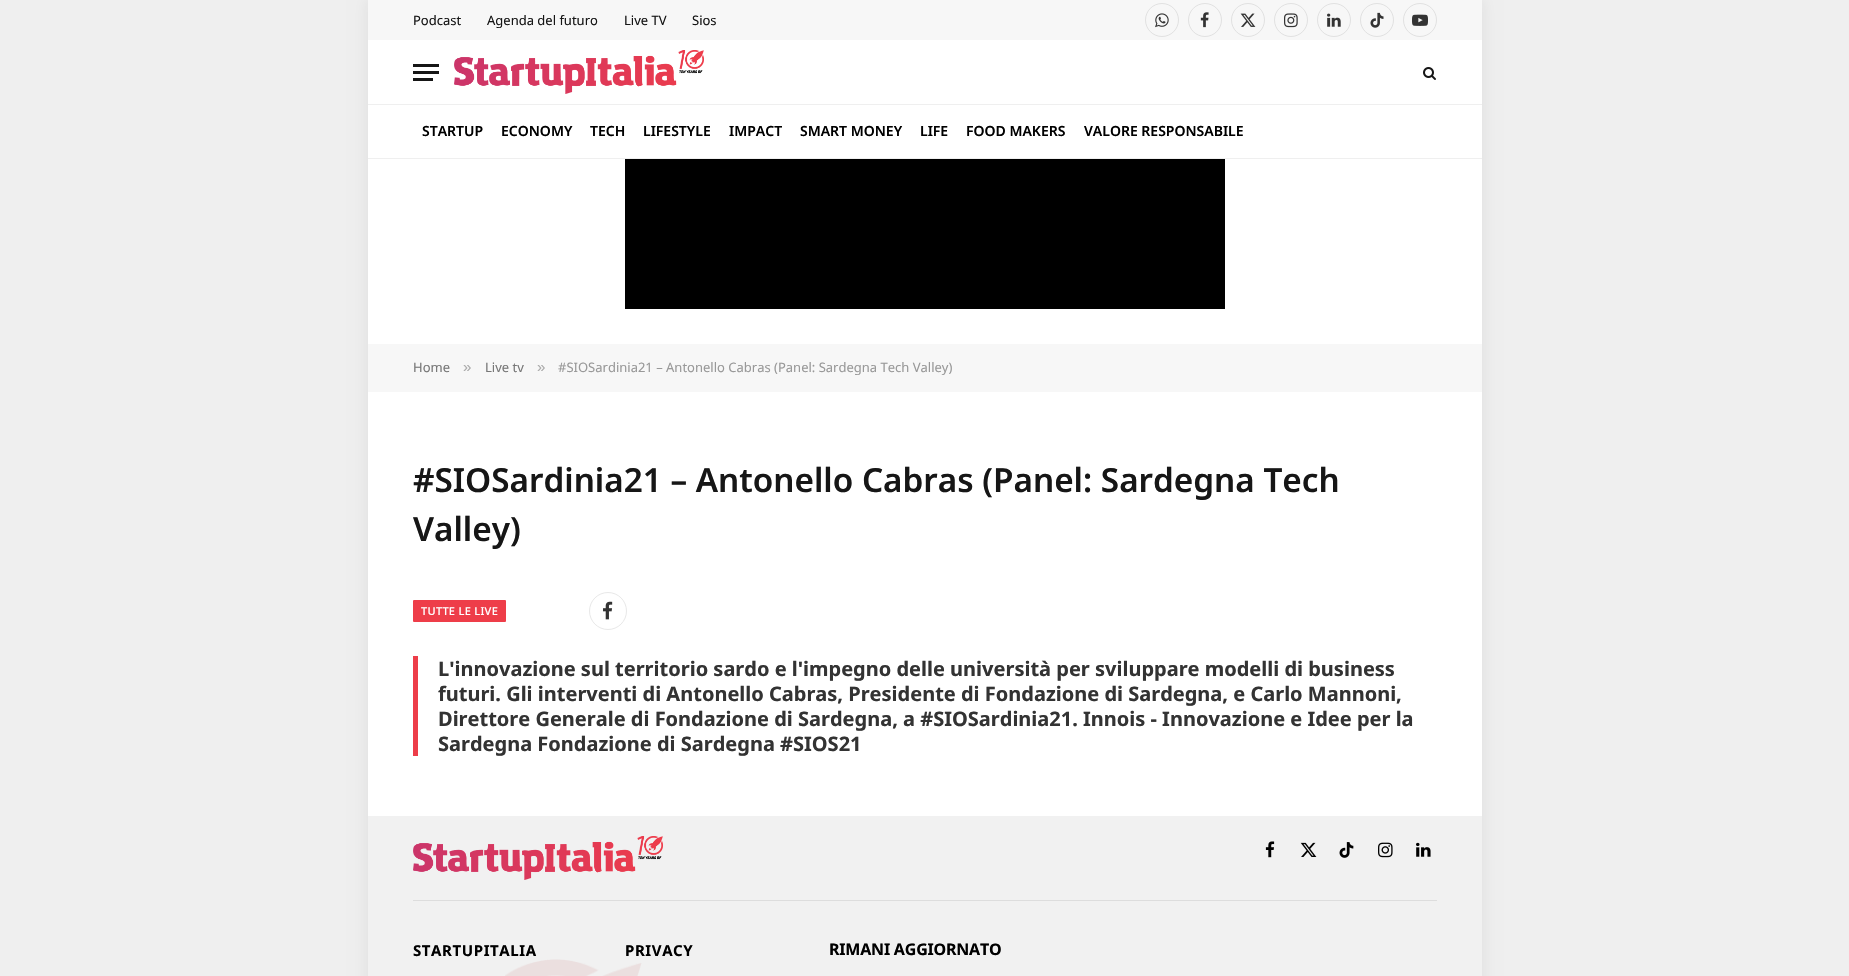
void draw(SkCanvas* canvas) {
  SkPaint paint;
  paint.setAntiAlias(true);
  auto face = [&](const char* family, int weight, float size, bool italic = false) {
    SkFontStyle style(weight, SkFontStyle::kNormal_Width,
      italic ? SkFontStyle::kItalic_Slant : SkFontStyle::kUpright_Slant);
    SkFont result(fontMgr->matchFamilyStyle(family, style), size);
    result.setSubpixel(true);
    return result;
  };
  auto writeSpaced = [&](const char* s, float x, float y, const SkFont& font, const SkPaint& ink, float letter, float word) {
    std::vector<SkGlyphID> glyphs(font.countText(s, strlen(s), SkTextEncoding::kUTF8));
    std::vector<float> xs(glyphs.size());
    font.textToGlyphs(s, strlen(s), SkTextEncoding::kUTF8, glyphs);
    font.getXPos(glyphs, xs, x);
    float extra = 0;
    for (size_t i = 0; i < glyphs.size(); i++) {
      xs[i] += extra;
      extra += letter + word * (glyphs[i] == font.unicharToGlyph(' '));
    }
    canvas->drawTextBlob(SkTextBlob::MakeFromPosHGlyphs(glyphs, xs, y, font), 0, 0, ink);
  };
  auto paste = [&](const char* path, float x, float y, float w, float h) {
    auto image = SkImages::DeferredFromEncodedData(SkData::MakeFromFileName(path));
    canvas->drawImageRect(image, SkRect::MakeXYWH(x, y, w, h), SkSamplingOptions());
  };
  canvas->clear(0xffefefef);
  paint.setColor(0x14000000);
  paint.setMaskFilter(SkMaskFilter::MakeBlur(kNormal_SkBlurStyle, 7.5f));
  canvas->drawRect(SkRect::MakeXYWH(368, 0, 1114, 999), paint);
  paint.setMaskFilter(nullptr);
  paint.setColor(0xffffffff);
  canvas->drawRect(SkRect::MakeXYWH(368, 40, 1114, 776), paint);
  paint.setColor(0xfff7f7f7);
  canvas->drawRect(SkRect::MakeXYWH(368, 0, 1114, 40), paint);
  paint.setStroke(true);
  paint.setStrokeWidth(1);
  paint.setColor(0xffe1e1e1);
  canvas->drawCircle(1162, 20, 16.5f, paint);
  paste("img/1.png", 1155, 13, 14, 15);
  canvas->drawCircle(1205, 20, 16.5f, paint);
  paste("img/2.png", 1200, 12, 9, 16);
  canvas->drawCircle(1248, 20, 16.5f, paint);
  paste("img/3.png", 1240, 13, 16, 14);
  canvas->drawCircle(1291, 20, 16.5f, paint);
  paste("img/4.png", 1284, 13, 14, 15);
  canvas->drawCircle(1334, 20, 16.5f, paint);
  paste("img/5.png", 1327, 13, 14, 14);
  canvas->drawCircle(1377, 20, 16.5f, paint);
  paste("img/6.png", 1370, 12, 14, 16);
  canvas->drawCircle(1420, 20, 16.5f, paint);
  paste("img/7.png", 1412, 14, 16, 12);
  paint.setStroke(false);
  {
    const struct { float x, y, w, h; SkColor color; } items[] = {
      {413, 78, 20, 3, 0xff161616},
      {413, 64, 26, 3, 0xff161616},
      {413, 71, 26, 3, 0xff161616},
    };
    for (auto [x, y, w, h, color] : items) {
      paint.setColor(color);
      canvas->drawRect(SkRect::MakeXYWH(x, y, w, h), paint);
    }
  }
  paste("img/8.png", 454, 50, 250, 44);
  paste("img/9.png", 1423, 67, 13, 13);
  {
    const struct { float x, y, w, h; SkColor color; } items[] = {
      {368, 104, 1114, 1, 0xffefefef},
      {368, 158, 1114, 1, 0xffefefef},
      {625, 159, 600, 150, 0xff000000},
      {368, 344, 1114, 48, 0xfff7f7f7},
    };
    for (auto [x, y, w, h, color] : items) {
      paint.setColor(color);
      canvas->drawRect(SkRect::MakeXYWH(x, y, w, h), paint);
    }
  }
  paint.setColor(0xffee3d49);
  canvas->drawRoundRect(SkRect::MakeXYWH(413, 600, 93, 22), 1, 1, paint);
  paint.setStroke(true);
  paint.setColor(0xffe8e8e8);
  canvas->drawCircle(608, 611, 18.5f, paint);
  paste("img/10.png", 603, 601, 10, 19);
  paint.setStroke(false);
  paint.setColor(0xffed3d49);
  canvas->drawRect(SkRect::MakeXYWH(413, 656, 5, 100), paint);
  paint.setColor(0xfff1f1f1);
  canvas->drawRect(SkRect::MakeXYWH(368, 816, 1114, 160), paint);
  paste("img/11.png", 413, 836, 250, 44);
  paste("img/12.png", 1265, 841, 10, 17);
  paste("img/13.png", 1300, 842, 17, 15);
  paste("img/14.png", 1339, 842, 15, 16);
  paste("img/15.png", 1378, 842, 15, 16);
  paste("img/16.png", 1416, 842, 15, 15);
  paint.setColor(0xffdddddd);
  canvas->drawRect(SkRect::MakeXYWH(413, 900, 1024, 1), paint);
  paste("img/17.png", 505, 959, 137, 17);
  auto f0 = face("Noto Sans", 400, 13);
  paint.setColor(0xff161616);
  {
    const struct { const char* s; float x, y; } items[] = {
      {"Podcast", 413, 25},
      {"Agenda del futuro", 487, 25},
      {"Live TV", 624, 25},
      {"Sios", 692, 25},
    };
    for (auto [s, x, y] : items) {
      canvas->drawString(s, x, y, f0, paint);
    }
  }
  auto f1 = face("Noto Sans", 600, 14);
  paint.setColor(0xff000000);
  {
    const struct { const char* s; float x, y; } items[] = {
      {"STARTUP", 422, 136},
      {"ECONOMY", 501, 136},
      {"TECH", 590, 136},
      {"LIFESTYLE", 643, 136},
      {"IMPACT", 729, 136},
      {"SMART MONEY", 800, 136},
      {"LIFE", 920, 136},
      {"FOOD MAKERS", 966, 136},
      {"VALORE RESPONSABILE", 1084, 136},
    };
    for (auto [s, x, y] : items) {
      canvas->drawString(s, x, y, f1, paint);
    }
  }
  paint.setColor(0xff777777);
  canvas->drawString("Home", 413, 372, f0, paint);
  auto f2 = face("Liberation Sans", 400, 15);
  paint.setColor(0xffacacac);
  canvas->drawString("»", 463, 372, f2, paint);
  paint.setColor(0xff777777);
  canvas->drawString("Live tv", 485, 372, f0, paint);
  paint.setColor(0xffacacac);
  canvas->drawString("»", 537, 372, f2, paint);
  paint.setColor(0xff999999);
  canvas->drawString("#SIOSardinia21 – Antonello Cabras (Panel: Sardegna Tech Valley)", 558, 372, f0, paint);
  auto f3 = face("Noto Sans", 600, 33.25f);
  paint.setColor(0xff161616);
  canvas->drawString("#SIOSardinia21 – Antonello Cabras (Panel: Sardegna Tech", 413, 492, f3, paint);
  canvas->drawString("Valley)", 413, 541, f3, paint);
  auto f4 = face("Noto Sans", 500, 11);
  paint.setColor(0xffffffff);
  writeSpaced("TUTTE LE LIVE", 421, 615, f4, paint, 0.3f, 0);
  auto f5 = face("Noto Sans", 700, 20);
  paint.setColor(0xff333333);
  {
    const struct { const char* s; float x, y; } items[] = {
      {"L'innovazione sul territorio sardo e l'impegno delle università per sviluppare modelli di business", 438, 676},
      {"futuri. Gli interventi di Antonello Cabras, Presidente di Fondazione di Sardegna, e Carlo Mannoni,", 438, 701},
      {"Direttore Generale di Fondazione di Sardegna, a #SIOSardinia21. Innois - Innovazione e Idee per la", 438, 726},
      {"Sardegna Fondazione di Sardegna #SIOS21", 438, 751},
    };
    for (auto [s, x, y] : items) {
      canvas->drawString(s, x, y, f5, paint);
    }
  }
  auto f6 = face("Noto Sans", 700, 15);
  paint.setColor(0xff000000);
  writeSpaced("STARTUPITALIA", 413, 956, f6, paint, 0.6f, 0);
  writeSpaced("PRIVACY", 625, 956, f6, paint, 0.6f, 0);
  auto f7 = face("Noto Sans", 700, 16);
  writeSpaced("RIMANI AGGIORNATO", 829, 955, f7, paint, -0.2f, 0);
}
